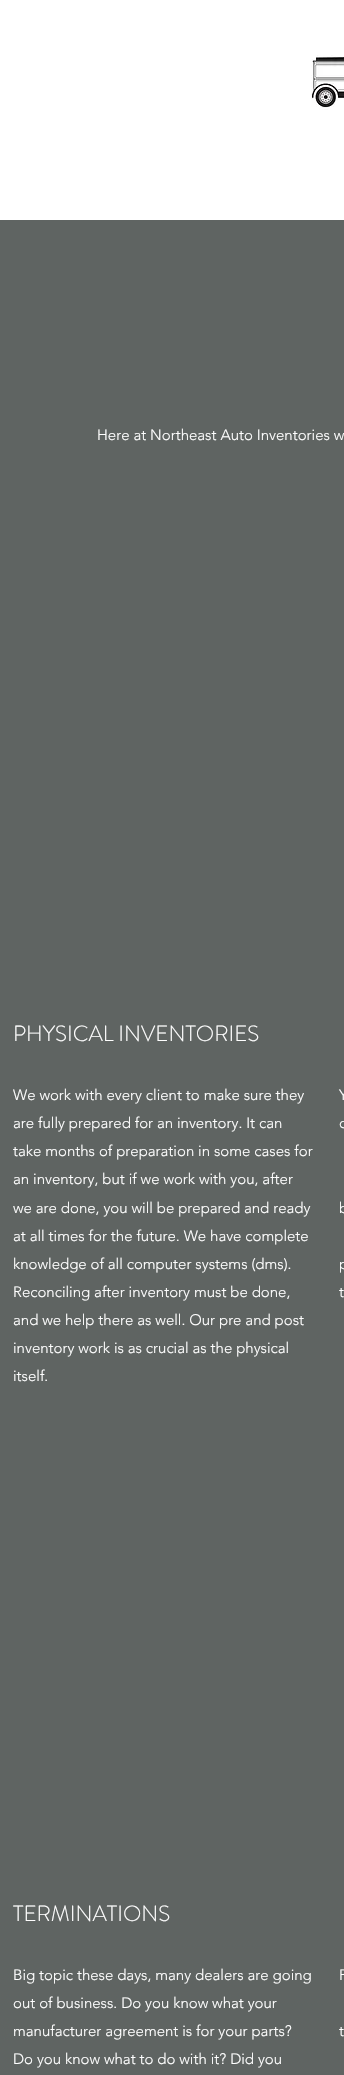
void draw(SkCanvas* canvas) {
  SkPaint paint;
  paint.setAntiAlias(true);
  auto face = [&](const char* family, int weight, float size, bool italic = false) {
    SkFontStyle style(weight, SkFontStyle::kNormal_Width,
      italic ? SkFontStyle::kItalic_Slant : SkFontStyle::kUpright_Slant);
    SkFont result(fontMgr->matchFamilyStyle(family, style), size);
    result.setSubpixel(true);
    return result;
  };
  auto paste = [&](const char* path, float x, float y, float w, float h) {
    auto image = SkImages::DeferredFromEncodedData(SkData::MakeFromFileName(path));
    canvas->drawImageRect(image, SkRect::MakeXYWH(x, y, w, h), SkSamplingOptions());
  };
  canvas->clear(0xffffffff);
  paste("img/1.png", 311, 55, 33, 55);
  paint.setColor(0xff5f6462);
  canvas->drawRect(SkRect::MakeXYWH(0, 220, 344, 1855), paint);
  auto f0 = face("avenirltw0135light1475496", 300, 15);
  paint.setColor(0xffffffff);
  canvas->drawString("Here at Northeast Auto Inventories w", 97, 440, f0, paint);
  auto f1 = face("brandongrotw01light", 300, 22);
  canvas->drawString("PHYSICAL INVENTORIES", 13, 1041, f1, paint);
  {
    const struct { const char* s; float x, y; } items[] = {
      {"We work with every client to make sure they", 13, 1100},
      {"are fully prepared for an inventory. It can", 13, 1128},
      {"take months of preparation in some cases for", 13, 1156},
      {"an inventory, but if we work with you, after", 13, 1184},
      {"we are done, you will be prepared and ready", 13, 1213},
      {"at all times for the future. We have complete", 13, 1241},
      {"knowledge of all computer systems (dms).", 13, 1269},
      {"Reconciling after inventory must be done,", 13, 1297},
      {"and we help there as well. Our pre and post", 13, 1325},
      {"inventory work is as crucial as the physical", 13, 1353},
      {"itself.", 13, 1381},
      {"Y", 339, 1100},
      {"c", 339, 1128},
      {"b", 339, 1213},
      {"p", 339, 1269},
      {"t", 339, 1297},
    };
    for (auto [s, x, y] : items) {
      canvas->drawString(s, x, y, f0, paint);
    }
  }
  canvas->drawString("TERMINATIONS", 13, 1921, f1, paint);
  {
    const struct { const char* s; float x, y; } items[] = {
      {"Big topic these days, many dealers are going", 13, 1980},
      {"out of business. Do you know what your", 13, 2008},
      {"manufacturer agreement is for your parts?", 13, 2036},
      {"Do you know what to do with it? Did you", 13, 2064},
      {"P", 339, 1980},
      {"t", 339, 2036},
    };
    for (auto [s, x, y] : items) {
      canvas->drawString(s, x, y, f0, paint);
    }
  }
}
